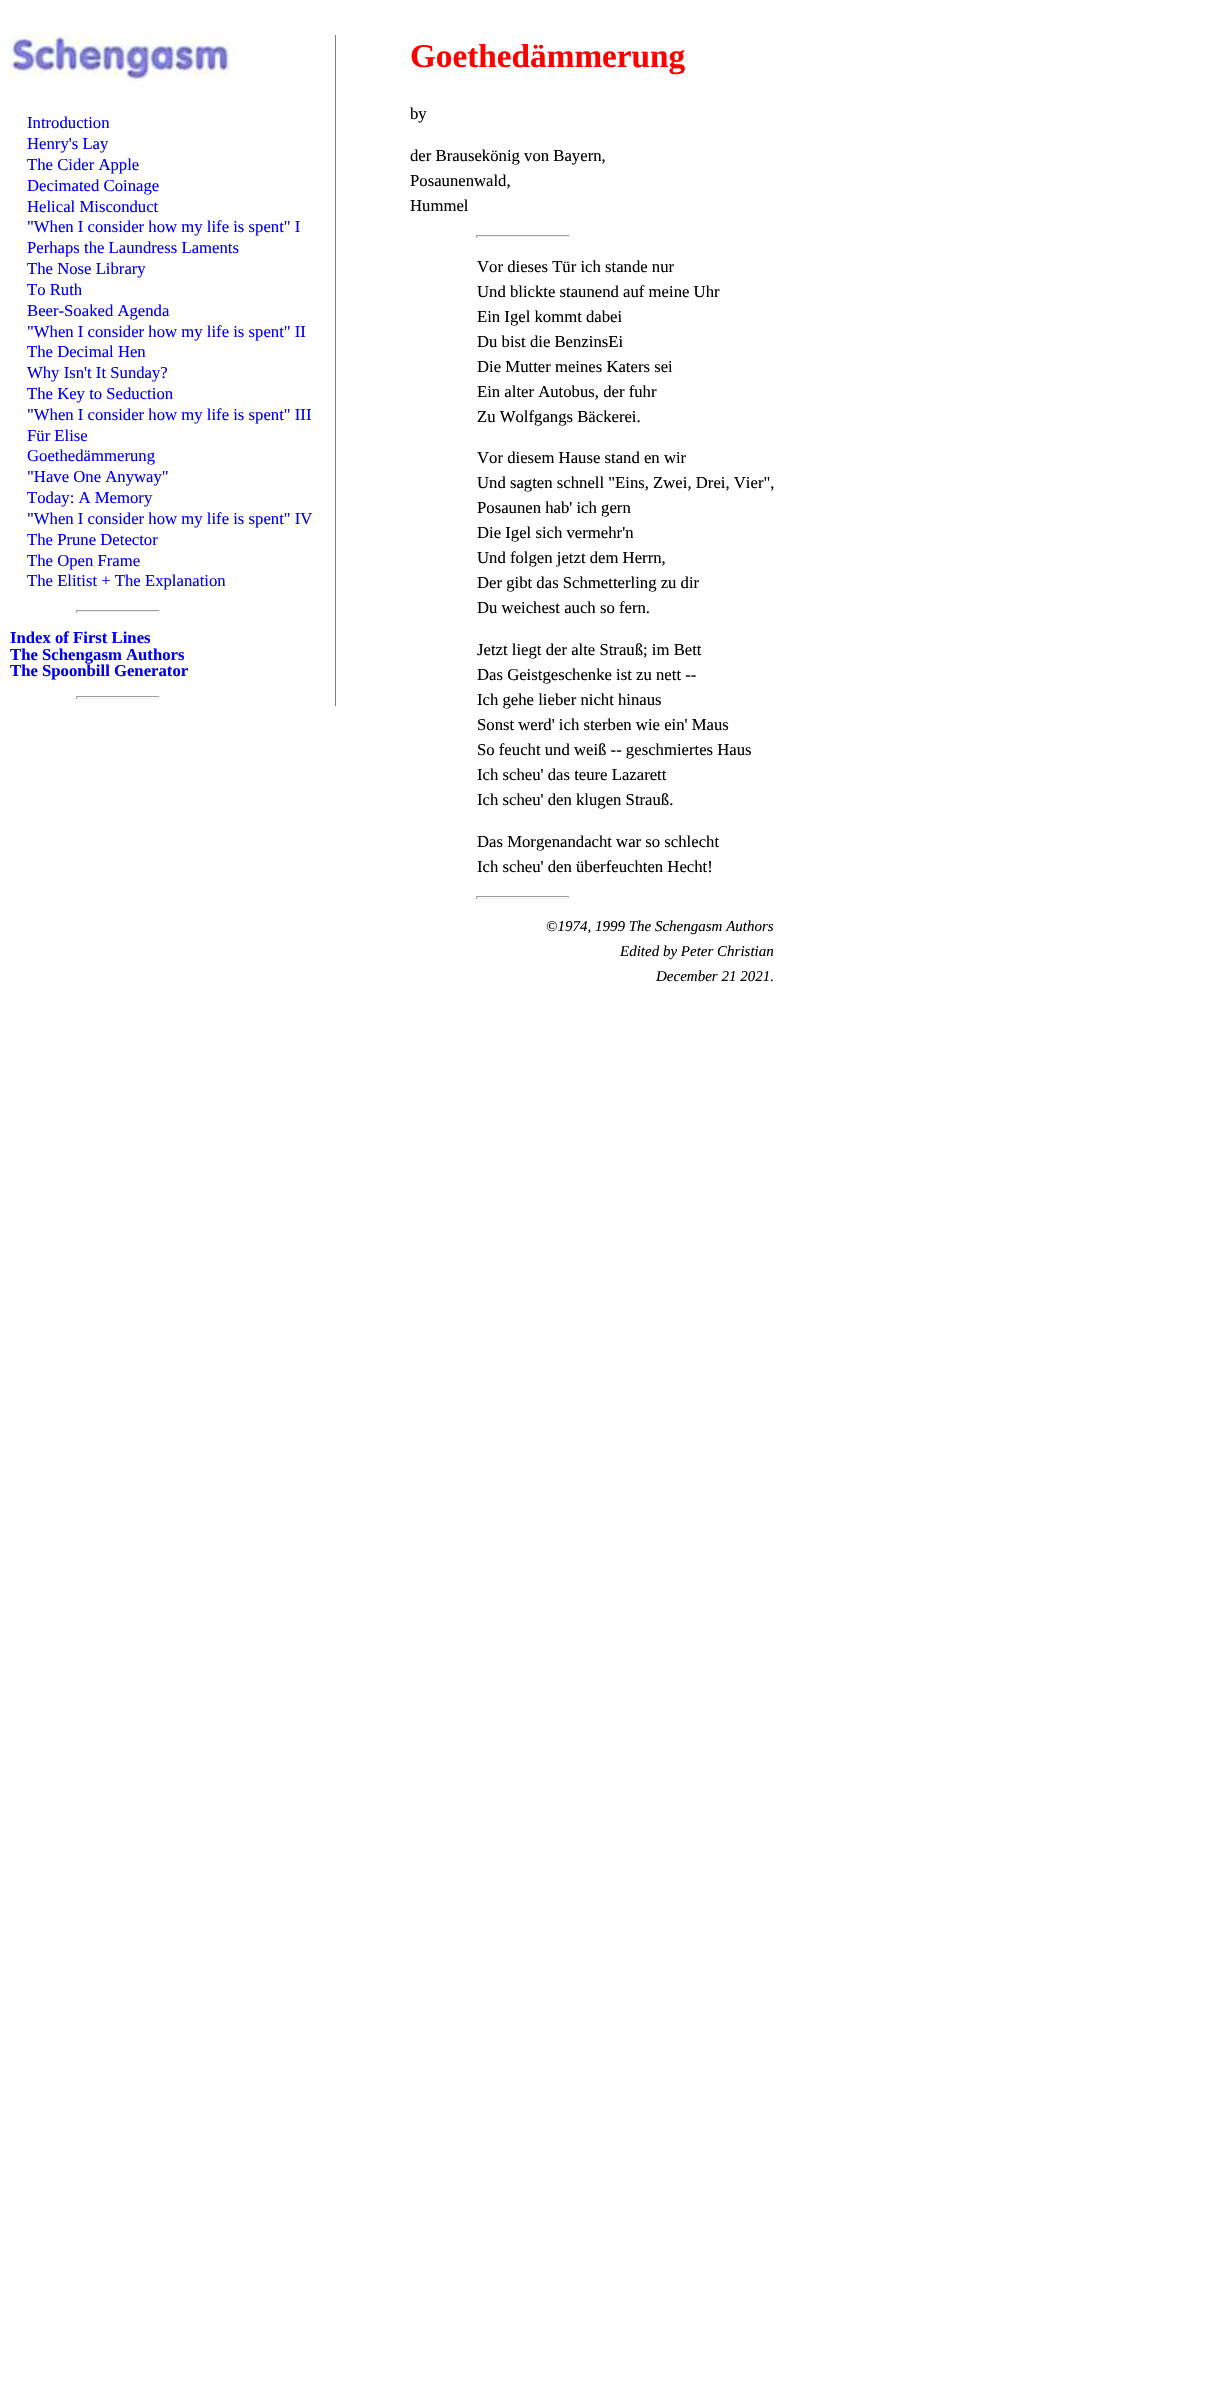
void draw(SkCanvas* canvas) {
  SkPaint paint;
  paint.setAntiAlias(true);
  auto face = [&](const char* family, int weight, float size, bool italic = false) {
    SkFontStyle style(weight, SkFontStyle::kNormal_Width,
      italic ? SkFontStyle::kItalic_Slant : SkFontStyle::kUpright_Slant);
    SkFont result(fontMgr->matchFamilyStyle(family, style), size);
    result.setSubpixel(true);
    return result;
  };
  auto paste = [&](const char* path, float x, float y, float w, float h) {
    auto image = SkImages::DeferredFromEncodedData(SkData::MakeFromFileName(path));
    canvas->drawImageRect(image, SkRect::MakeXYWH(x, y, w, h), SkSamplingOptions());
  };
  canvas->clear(0xffffffff);
  paint.setColor(0xff808080);
  canvas->drawRect(SkRect::MakeXYWH(335, 35, 1, 671), paint);
  paste("img/1.png", 10, 35, 220, 47);
  {
    const struct { float x, y, w, h; SkColor color; } items[] = {
      {76, 610, 84, 1, 0xff9f9f9f},
      {159, 610, 1, 3, 0xffeeeeee},
      {76, 611, 84, 1, 0xffeeeeee},
      {76, 610, 1, 3, 0xff9f9f9f},
      {76, 696, 84, 1, 0xff9f9f9f},
      {159, 696, 1, 3, 0xffeeeeee},
      {76, 698, 84, 1, 0xffeeeeee},
      {76, 696, 1, 3, 0xff9f9f9f},
      {476, 235, 94, 1, 0xff9f9f9f},
      {569, 235, 1, 3, 0xffeeeeee},
      {476, 236, 94, 1, 0xffeeeeee},
      {476, 235, 1, 3, 0xff9f9f9f},
      {476, 896, 94, 1, 0xff9f9f9f},
      {569, 896, 1, 3, 0xffeeeeee},
      {476, 898, 94, 1, 0xffeeeeee},
      {476, 896, 1, 3, 0xff9f9f9f},
    };
    for (auto [x, y, w, h, color] : items) {
      paint.setColor(color);
      canvas->drawRect(SkRect::MakeXYWH(x, y, w, h), paint);
    }
  }
  auto f0 = face("Liberation Serif", 400, 16.7f);
  paint.setColor(0xff0000ee);
  {
    const struct { const char* s; float x, y; } items[] = {
      {"Introduction", 27, 128},
      {"Henry's Lay", 27, 149},
      {"The Cider Apple", 27, 170},
      {"Decimated Coinage", 27, 191},
      {"Helical Misconduct", 27, 212},
      {"\"When I consider how my life is spent\" I", 27, 232},
      {"Perhaps the Laundress Laments", 27, 253},
      {"The Nose Library", 27, 274},
      {"To Ruth", 27, 295},
      {"Beer-Soaked Agenda", 27, 316},
      {"\"When I consider how my life is spent\" II", 27, 337},
      {"The Decimal Hen", 27, 357},
      {"Why Isn't It Sunday?", 27, 378},
      {"The Key to Seduction", 27, 399},
      {"\"When I consider how my life is spent\" III", 27, 420},
      {"Für Elise", 27, 441},
      {"Goethedämmerung", 27, 461},
      {"\"Have One Anyway\"", 27, 482},
      {"Today: A Memory", 27, 503},
      {"\"When I consider how my life is spent\" IV", 27, 524},
      {"The Prune Detector", 27, 545},
      {"The Open Frame", 27, 566},
      {"The Elitist + The Explanation", 27, 586},
    };
    for (auto [s, x, y] : items) {
      canvas->drawString(s, x, y, f0, paint);
    }
  }
  auto f1 = face("Liberation Serif", 700, 16.7f);
  {
    const struct { const char* s; float x, y; } items[] = {
      {"Index of First Lines", 10, 643},
      {"The Schengasm Authors", 10, 660},
      {"The Spoonbill Generator", 10, 676},
    };
    for (auto [s, x, y] : items) {
      canvas->drawString(s, x, y, f1, paint);
    }
  }
  auto f2 = face("Liberation Serif", 700, 33.25f);
  paint.setColor(0xffff0000);
  canvas->drawString("Goethedämmerung", 410, 67, f2, paint);
  paint.setColor(0xff000000);
  {
    const struct { const char* s; float x, y; } items[] = {
      {"by", 410, 119},
      {"der Brausekönig von Bayern,", 410, 161},
      {"Posaunenwald,", 410, 186},
      {"Hummel", 410, 211},
      {"Vor dieses Tür ich stande nur", 477, 272},
      {"Und blickte staunend auf meine Uhr", 477, 297},
      {"Ein Igel kommt dabei", 477, 322},
      {"Du bist die BenzinsEi", 477, 347},
      {"Die Mutter meines Katers sei", 477, 372},
      {"Ein alter Autobus, der fuhr", 477, 397},
      {"Zu Wolfgangs Bäckerei.", 477, 422},
      {"Vor diesem Hause stand en wir", 477, 463},
      {"Und sagten schnell \"Eins, Zwei, Drei, Vier\",", 477, 488},
      {"Posaunen hab' ich gern", 477, 513},
      {"Die Igel sich vermehr'n", 477, 538},
      {"Und folgen jetzt dem Herrn,", 477, 563},
      {"Der gibt das Schmetterling zu dir", 477, 588},
      {"Du weichest auch so fern.", 477, 613},
      {"Jetzt liegt der alte Strauß; im Bett", 477, 655},
      {"Das Geistgeschenke ist zu nett --", 477, 680},
      {"Ich gehe lieber nicht hinaus", 477, 705},
      {"Sonst werd' ich sterben wie ein' Maus", 477, 730},
      {"So feucht und weiß -- geschmiertes Haus", 477, 755},
      {"Ich scheu' das teure Lazarett", 477, 780},
      {"Ich scheu' den klugen Strauß.", 477, 805},
      {"Das Morgenandacht war so schlecht", 477, 847},
      {"Ich scheu' den überfeuchten Hecht!", 477, 872},
    };
    for (auto [s, x, y] : items) {
      canvas->drawString(s, x, y, f0, paint);
    }
  }
  auto f3 = face("Liberation Serif", 400, 15, true);
  {
    const struct { const char* s; float x, y; } items[] = {
      {"©1974, 1999 The Schengasm Authors", 546, 931},
      {"Edited by Peter Christian", 620, 956},
      {"December 21 2021.", 656, 981},
    };
    for (auto [s, x, y] : items) {
      canvas->drawString(s, x, y, f3, paint);
    }
  }
}
